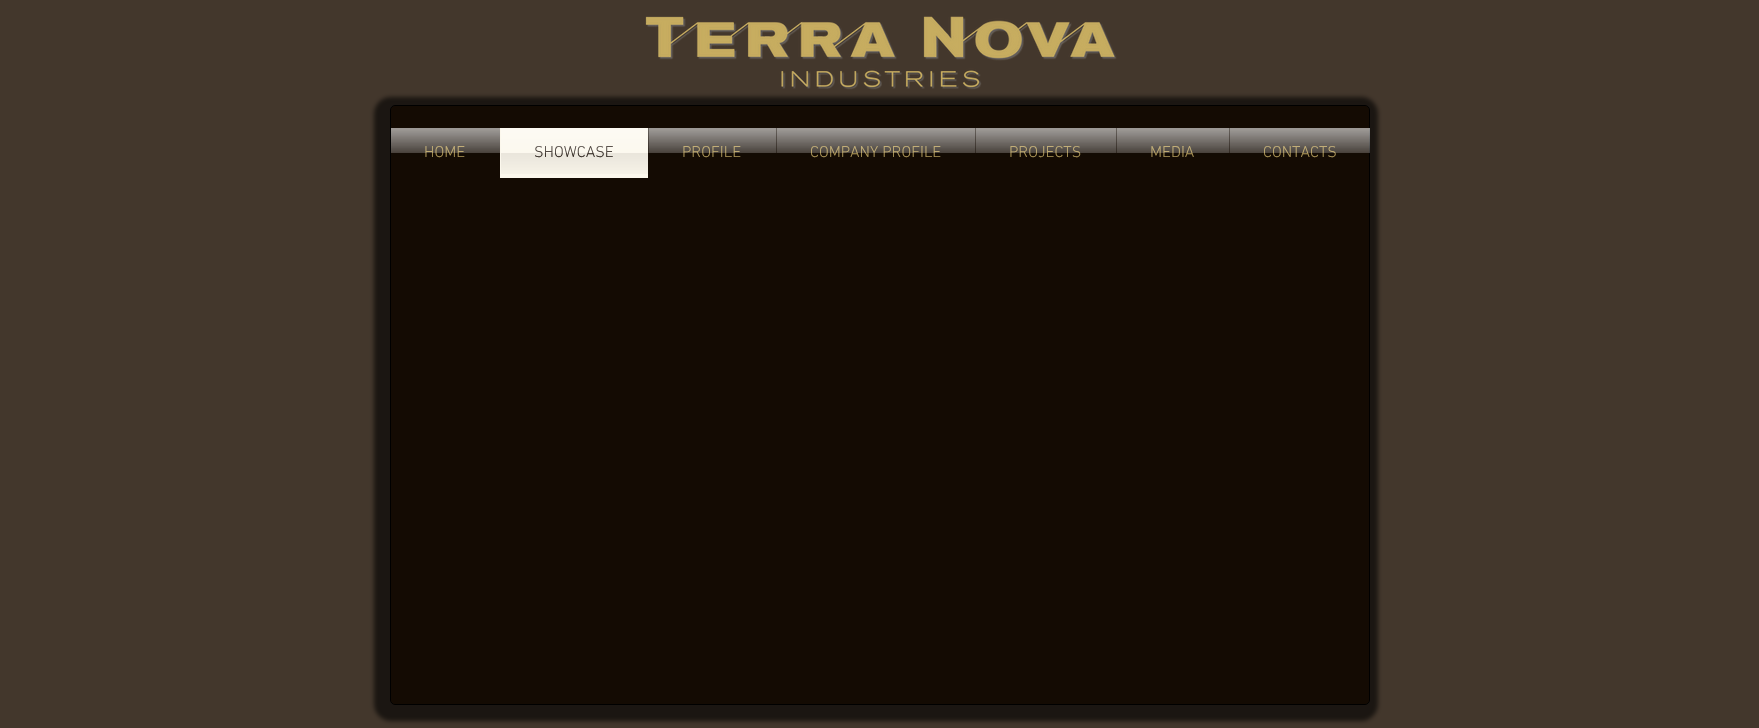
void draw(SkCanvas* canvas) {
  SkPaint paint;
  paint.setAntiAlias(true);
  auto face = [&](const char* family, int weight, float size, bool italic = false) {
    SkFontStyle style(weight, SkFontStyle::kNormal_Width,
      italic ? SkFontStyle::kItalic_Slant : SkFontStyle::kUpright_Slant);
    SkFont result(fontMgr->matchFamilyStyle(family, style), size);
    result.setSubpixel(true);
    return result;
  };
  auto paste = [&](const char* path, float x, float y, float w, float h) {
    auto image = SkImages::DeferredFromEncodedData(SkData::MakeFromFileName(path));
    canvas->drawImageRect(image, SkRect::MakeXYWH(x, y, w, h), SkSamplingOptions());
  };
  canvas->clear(0xff43372c);
  paste("img/1.png", 645, 16, 472, 74);
  paint.setColor(0x99000000);
  paint.setMaskFilter(SkMaskFilter::MakeBlur(kNormal_SkBlurStyle, 2));
  canvas->drawRoundRect(SkRect::MakeXYWH(374, 97, 1004, 624), 17, 17, paint);
  paint.setMaskFilter(nullptr);
  paint.setColor(0xff140b03);
  canvas->drawRoundRect(SkRect::MakeXYWH(390.5f, 105.5f, 979, 599), 4.5f, 4.5f, paint);
  paint.setStroke(true);
  paint.setStrokeWidth(1);
  paint.setColor(0xff000000);
  canvas->drawRoundRect(SkRect::MakeXYWH(390.5f, 105.5f, 979, 599), 4.5f, 4.5f, paint);
  paste("img/2.png", 391, 128, 979, 25);
  paint.setStroke(false);
  paint.setColor(0xfffcf8ed);
  canvas->drawRect(SkRect::MakeXYWH(500, 128, 148, 50), paint);
  auto f0 = face("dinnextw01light", 300, 16);
  paint.setColor(0xffb59d5b);
  canvas->drawString("HOME", 424, 157, f0, paint);
  paste("img/3.png", 391, 128, 109, 29);
  paint.setColor(0xff372e27);
  canvas->drawString("SHOWCASE", 534, 157, f0, paint);
  paste("img/4.png", 501, 128, 147, 46);
  paint.setColor(0xffb59d5b);
  canvas->drawString("PROFILE", 682, 157, f0, paint);
  paste("img/5.png", 649, 128, 127, 29);
  canvas->drawString("COMPANY PROFILE", 810, 157, f0, paint);
  paste("img/6.png", 777, 128, 198, 29);
  canvas->drawString("PROJECTS", 1009, 157, f0, paint);
  paste("img/7.png", 976, 128, 140, 29);
  canvas->drawString("MEDIA", 1150, 157, f0, paint);
  paste("img/8.png", 1117, 128, 112, 29);
  canvas->drawString("CONTACTS", 1263, 157, f0, paint);
  paste("img/9.png", 1230, 128, 140, 29);
}
